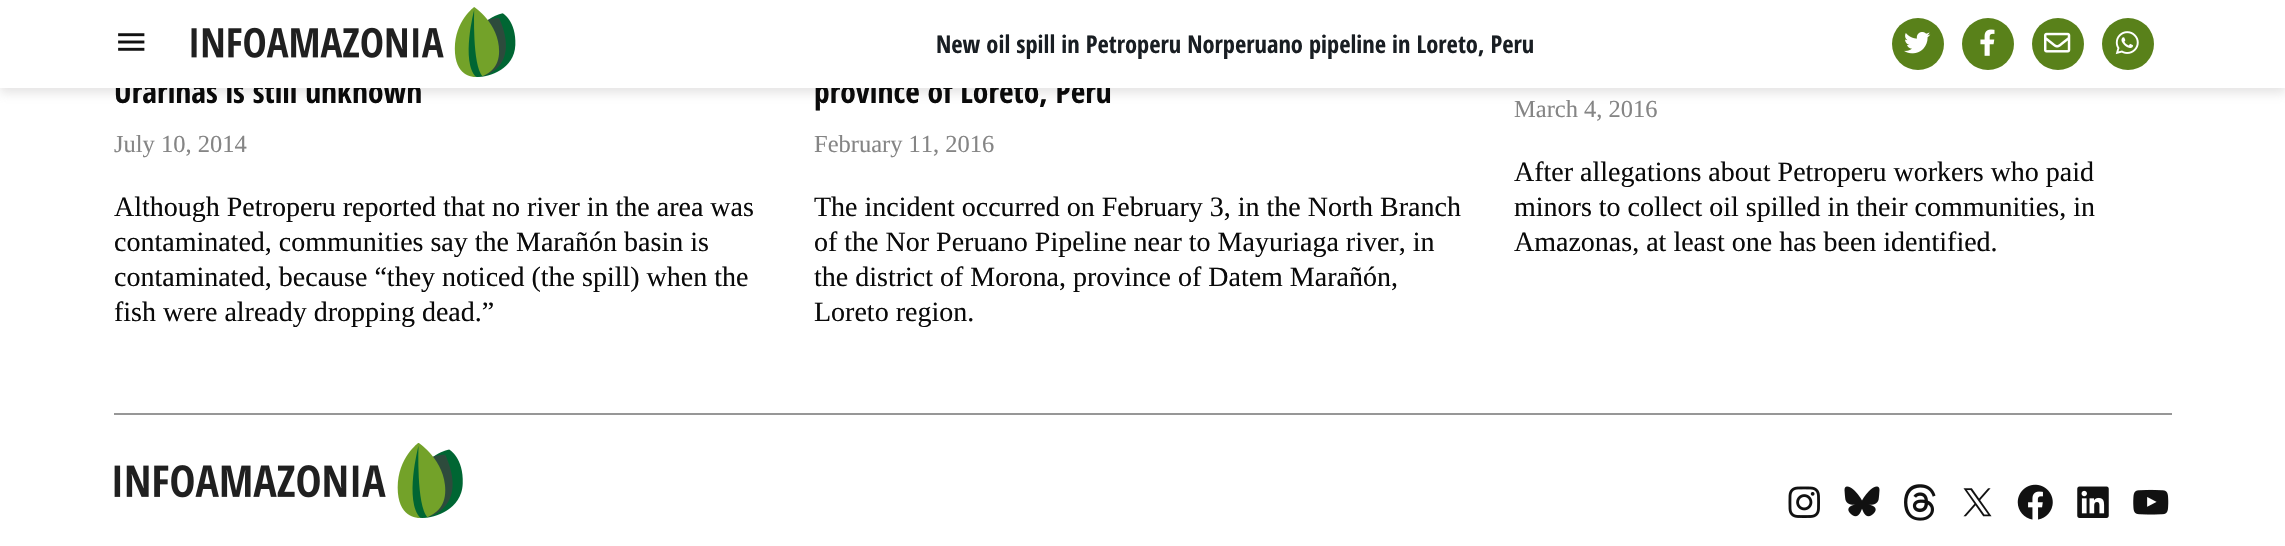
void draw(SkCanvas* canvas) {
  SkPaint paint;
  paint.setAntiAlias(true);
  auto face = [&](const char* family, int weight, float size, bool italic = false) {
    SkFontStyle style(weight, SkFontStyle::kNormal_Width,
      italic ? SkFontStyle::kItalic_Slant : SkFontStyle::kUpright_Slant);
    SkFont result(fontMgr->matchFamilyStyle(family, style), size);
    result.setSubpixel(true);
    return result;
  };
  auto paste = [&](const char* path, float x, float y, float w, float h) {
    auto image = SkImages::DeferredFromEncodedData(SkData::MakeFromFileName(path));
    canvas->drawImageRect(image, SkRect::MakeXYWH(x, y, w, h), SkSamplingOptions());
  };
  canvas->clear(0xffffffff);
  paint.setColor(0x4da6a3a3);
  paint.setMaskFilter(SkMaskFilter::MakeBlur(kNormal_SkBlurStyle, 5));
  canvas->drawRect(SkRect::MakeXYWH(0, 5, 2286, 88), paint);
  paint.setMaskFilter(nullptr);
  paint.setColor(0xff979797);
  canvas->drawRect(SkRect::MakeXYWH(114, 413, 2058, 2), paint);
  paste("img/7.png", 114, 443, 349, 75);
  paste("img/8.png", 1788, 486, 32, 32);
  paste("img/9.png", 1844, 486, 36, 31);
  paste("img/10.png", 1904, 484, 32, 37);
  paste("img/11.png", 1963, 488, 29, 29);
  paste("img/12.png", 2017, 484, 36, 36);
  paste("img/13.png", 2077, 486, 32, 32);
  paste("img/14.png", 2133, 489, 36, 26);
  auto f0 = face("Open Sans Condensed", 700, 31.5f);
  paint.setColor(0xff0a0a0a);
  canvas->drawString("Urarinas is still unknown", 114, 103, f0, paint);
  auto f1 = face("Liberation Serif", 400, 24.5f);
  paint.setColor(0xff858585);
  canvas->drawString("July 10, 2014", 114, 152, f1, paint);
  auto f2 = face("Liberation Serif", 400, 28);
  paint.setColor(0xff0a0a0a);
  {
    const struct { const char* s; float x, y; } items[] = {
      {"Although Petroperu reported that no river in the area was", 114, 216},
      {"contaminated, communities say the Marañón basin is", 114, 251},
      {"contaminated, because “they noticed (the spill) when the", 114, 286},
      {"fish were already dropping dead.”", 114, 321},
    };
    for (auto [s, x, y] : items) {
      canvas->drawString(s, x, y, f2, paint);
    }
  }
  canvas->drawString("province of Loreto, Peru", 814, 103, f0, paint);
  paint.setColor(0xffffffff);
  canvas->drawRect(SkRect::MakeXYWH(0, 0, 2285, 88), paint);
  paste("img/2.png", 191, 7, 325, 70);
  paste("img/1.png", 118, 33, 27, 18);
  paint.setColor(0xff59811a);
  canvas->drawCircle(2128, 44, 26, paint);
  paste("img/6.png", 2115, 31, 24, 24);
  canvas->drawCircle(2058, 44, 26, paint);
  paste("img/5.png", 2044, 32, 27, 21);
  canvas->drawCircle(1988, 44, 26, paint);
  paste("img/4.png", 1980, 29, 15, 27);
  canvas->drawCircle(1918, 44, 26, paint);
  paste("img/3.png", 1904, 32, 27, 22);
  auto f3 = face("Open Sans Condensed", 700, 24.5f);
  paint.setColor(0xff191e23);
  canvas->drawString("New oil spill in Petroperu Norperuano pipeline in Loreto, Peru", 936, 53, f3, paint);
  paint.setColor(0xff858585);
  canvas->drawString("February 11, 2016", 814, 152, f1, paint);
  paint.setColor(0xff0a0a0a);
  {
    const struct { const char* s; float x, y; } items[] = {
      {"The incident occurred on February 3, in the North Branch", 814, 216},
      {"of the Nor Peruano Pipeline near to Mayuriaga river, in", 814, 251},
      {"the district of Morona, province of Datem Marañón,", 814, 286},
      {"Loreto region.", 814, 321},
    };
    for (auto [s, x, y] : items) {
      canvas->drawString(s, x, y, f2, paint);
    }
  }
  paint.setColor(0xff858585);
  canvas->drawString("March 4, 2016", 1514, 117, f1, paint);
  paint.setColor(0xff0a0a0a);
  {
    const struct { const char* s; float x, y; } items[] = {
      {"After allegations about Petroperu workers who paid", 1514, 181},
      {"minors to collect oil spilled in their communities, in", 1514, 216},
      {"Amazonas, at least one has been identified.", 1514, 251},
    };
    for (auto [s, x, y] : items) {
      canvas->drawString(s, x, y, f2, paint);
    }
  }
}
